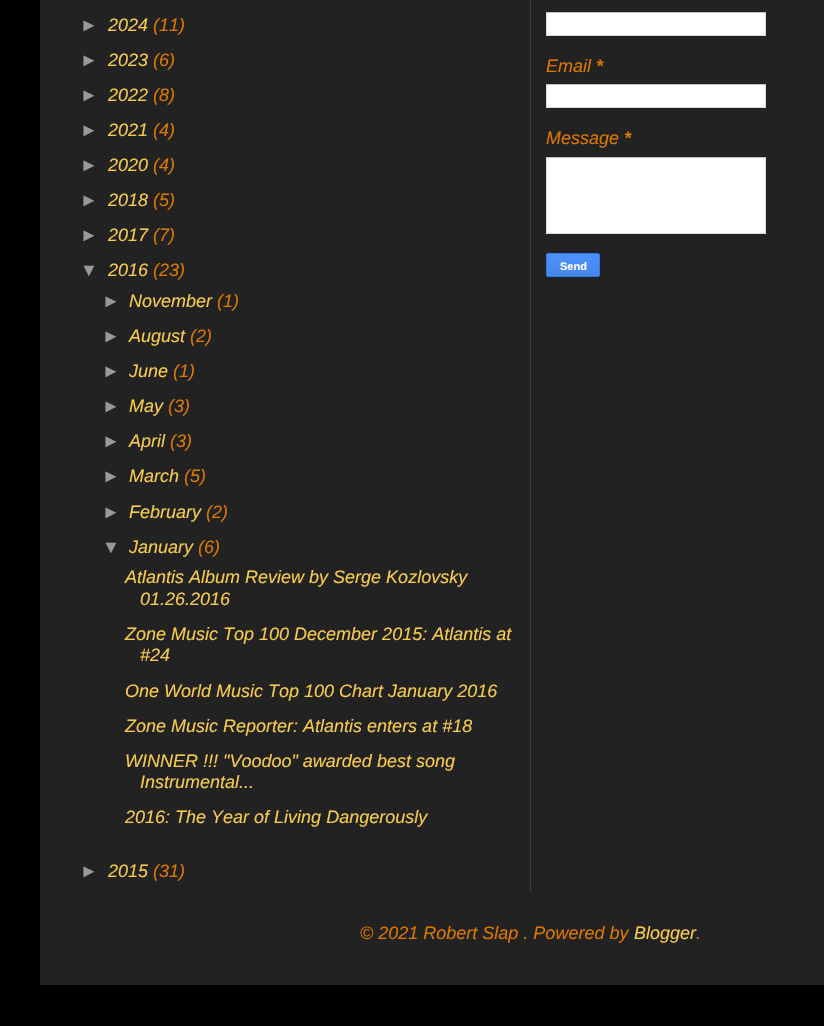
void draw(SkCanvas* canvas) {
  SkPaint paint;
  paint.setAntiAlias(true);
  auto face = [&](const char* family, int weight, float size, bool italic = false) {
    SkFontStyle style(weight, SkFontStyle::kNormal_Width,
      italic ? SkFontStyle::kItalic_Slant : SkFontStyle::kUpright_Slant);
    SkFont result(fontMgr->matchFamilyStyle(family, style), size);
    result.setSubpixel(true);
    return result;
  };
  auto shape = [&](const char* data, bool evenOdd = false) {
    SkPath result = *SkParsePath::FromSVGString(data);
    if (evenOdd) result.setFillType(SkPathFillType::kEvenOdd);
    return result;
  };
  canvas->clear(0xff000000);
  {
    const struct { float x, y, w, h; SkColor color; } items[] = {
      {40, 0, 784, 985, 0xff222222},
      {530, 0, 1, 891, 0xff404040},
      {547, 13, 218, 22, 0xffffffff},
      {546, 12, 220, 1, 0xffc0c0c0},
      {765, 12, 1, 24, 0xffd9d9d9},
      {546, 35, 220, 1, 0xffd9d9d9},
      {546, 12, 1, 24, 0xffd9d9d9},
      {547, 85, 218, 22, 0xffffffff},
      {546, 84, 220, 1, 0xffc0c0c0},
      {765, 84, 1, 24, 0xffd9d9d9},
      {546, 107, 220, 1, 0xffd9d9d9},
      {546, 84, 1, 24, 0xffd9d9d9},
      {547, 158, 218, 75, 0xffffffff},
      {546, 157, 220, 1, 0xffc0c0c0},
      {765, 157, 1, 77, 0xffd9d9d9},
      {546, 233, 220, 1, 0xffd9d9d9},
      {546, 157, 1, 77, 0xffd9d9d9},
    };
    for (auto [x, y, w, h, color] : items) {
      paint.setColor(color);
      canvas->drawRect(SkRect::MakeXYWH(x, y, w, h), paint);
    }
  }
  canvas->save();
  canvas->clipPath(shape("M548 253H598C599 253 600 254 600 255V275C600 276 599 277 598 277H548C547 277 546 276 546 275V255C546 254 547 253 548 253Z"), true);
  {
    const SkColor colors[] = {0xff4d90fe, 0xff4787ed};
    const float stops[] = {0, 1};
    const SkPoint ends[] = {{573, 254}, {573, 276}};
    paint.setShader(SkGradientShader::MakeLinear(ends, colors, stops, 2, SkTileMode::kClamp));
    paint.setAlpha(255);
  }
  canvas->drawRect(SkRect::MakeXYWH(546, 254, 54, 22), paint);
  canvas->restore();
  paint.setStroke(true);
  paint.setStrokeWidth(1);
  paint.setShader(nullptr);
  paint.setColor(0xff3079ed);
  canvas->drawRoundRect(SkRect::MakeXYWH(546.5f, 253.5f, 53, 23), 1.5f, 1.5f, paint);
  auto f0 = face("Liberation Sans", 400, 18, true);
  paint.setStroke(false);
  paint.setColor(0xff999999);
  canvas->drawString("►", 80, 31, f0, paint);
  paint.setColor(0xfff7cb4d);
  canvas->drawString("2024", 108, 31, f0, paint);
  paint.setColor(0xffdd7700);
  canvas->drawString("(11)", 153, 31, f0, paint);
  paint.setColor(0xff999999);
  canvas->drawString("►", 80, 66, f0, paint);
  paint.setColor(0xfff7cb4d);
  canvas->drawString("2023", 108, 66, f0, paint);
  paint.setColor(0xffdd7700);
  canvas->drawString("(6)", 153, 66, f0, paint);
  paint.setColor(0xff999999);
  canvas->drawString("►", 80, 101, f0, paint);
  paint.setColor(0xfff7cb4d);
  canvas->drawString("2022", 108, 101, f0, paint);
  paint.setColor(0xffdd7700);
  canvas->drawString("(8)", 153, 101, f0, paint);
  paint.setColor(0xff999999);
  canvas->drawString("►", 80, 136, f0, paint);
  paint.setColor(0xfff7cb4d);
  canvas->drawString("2021", 108, 136, f0, paint);
  paint.setColor(0xffdd7700);
  canvas->drawString("(4)", 153, 136, f0, paint);
  paint.setColor(0xff999999);
  canvas->drawString("►", 80, 171, f0, paint);
  paint.setColor(0xfff7cb4d);
  canvas->drawString("2020", 108, 171, f0, paint);
  paint.setColor(0xffdd7700);
  canvas->drawString("(4)", 153, 171, f0, paint);
  paint.setColor(0xff999999);
  canvas->drawString("►", 80, 206, f0, paint);
  paint.setColor(0xfff7cb4d);
  canvas->drawString("2018", 108, 206, f0, paint);
  paint.setColor(0xffdd7700);
  canvas->drawString("(5)", 153, 206, f0, paint);
  paint.setColor(0xff999999);
  canvas->drawString("►", 80, 241, f0, paint);
  paint.setColor(0xfff7cb4d);
  canvas->drawString("2017", 108, 241, f0, paint);
  paint.setColor(0xffdd7700);
  canvas->drawString("(7)", 153, 241, f0, paint);
  paint.setColor(0xff999999);
  canvas->drawString("▼", 80, 276, f0, paint);
  paint.setColor(0xfff7cb4d);
  canvas->drawString("2016", 108, 276, f0, paint);
  paint.setColor(0xffdd7700);
  canvas->drawString("(23)", 153, 276, f0, paint);
  paint.setColor(0xff999999);
  canvas->drawString("►", 102, 307, f0, paint);
  paint.setColor(0xfff7cb4d);
  canvas->drawString("November", 129, 307, f0, paint);
  paint.setColor(0xffdd7700);
  canvas->drawString("(1)", 217, 307, f0, paint);
  paint.setColor(0xff999999);
  canvas->drawString("►", 102, 342, f0, paint);
  paint.setColor(0xfff7cb4d);
  canvas->drawString("August", 129, 342, f0, paint);
  paint.setColor(0xffdd7700);
  canvas->drawString("(2)", 190, 342, f0, paint);
  paint.setColor(0xff999999);
  canvas->drawString("►", 102, 377, f0, paint);
  paint.setColor(0xfff7cb4d);
  canvas->drawString("June", 129, 377, f0, paint);
  paint.setColor(0xffdd7700);
  canvas->drawString("(1)", 173, 377, f0, paint);
  paint.setColor(0xff999999);
  canvas->drawString("►", 102, 412, f0, paint);
  paint.setColor(0xfff7cb4d);
  canvas->drawString("May", 129, 412, f0, paint);
  paint.setColor(0xffdd7700);
  canvas->drawString("(3)", 168, 412, f0, paint);
  paint.setColor(0xff999999);
  canvas->drawString("►", 102, 447, f0, paint);
  paint.setColor(0xfff7cb4d);
  canvas->drawString("April", 129, 447, f0, paint);
  paint.setColor(0xffdd7700);
  canvas->drawString("(3)", 170, 447, f0, paint);
  paint.setColor(0xff999999);
  canvas->drawString("►", 102, 482, f0, paint);
  paint.setColor(0xfff7cb4d);
  canvas->drawString("March", 129, 482, f0, paint);
  paint.setColor(0xffdd7700);
  canvas->drawString("(5)", 184, 482, f0, paint);
  paint.setColor(0xff999999);
  canvas->drawString("►", 102, 518, f0, paint);
  paint.setColor(0xfff7cb4d);
  canvas->drawString("February", 129, 518, f0, paint);
  paint.setColor(0xffdd7700);
  canvas->drawString("(2)", 206, 518, f0, paint);
  paint.setColor(0xff999999);
  canvas->drawString("▼", 102, 553, f0, paint);
  paint.setColor(0xfff7cb4d);
  canvas->drawString("January", 129, 553, f0, paint);
  paint.setColor(0xffdd7700);
  canvas->drawString("(6)", 198, 553, f0, paint);
  paint.setColor(0xfff7cb4d);
  {
    const struct { const char* s; float x, y; } items[] = {
      {"Atlantis Album Review by Serge Kozlovsky", 125, 583},
      {"01.26.2016", 140, 605},
      {"Zone Music Top 100 December 2015: Atlantis at", 125, 640},
      {"#24", 140, 661},
      {"One World Music Top 100 Chart January 2016", 125, 697},
      {"Zone Music Reporter: Atlantis enters at #18", 125, 732},
      {"WINNER !!! \"Voodoo\" awarded best song", 125, 767},
      {"Instrumental...", 140, 788},
      {"2016: The Year of Living Dangerously", 125, 823},
    };
    for (auto [s, x, y] : items) {
      canvas->drawString(s, x, y, f0, paint);
    }
  }
  paint.setColor(0xff999999);
  canvas->drawString("►", 80, 877, f0, paint);
  paint.setColor(0xfff7cb4d);
  canvas->drawString("2015", 108, 877, f0, paint);
  paint.setColor(0xffdd7700);
  canvas->drawString("(31)", 153, 877, f0, paint);
  canvas->drawString("Email", 546, 72, f0, paint);
  auto f1 = face("Liberation Sans", 700, 18, true);
  canvas->drawString("*", 596, 72, f1, paint);
  canvas->drawString("Message", 546, 144, f0, paint);
  canvas->drawString("*", 624, 144, f1, paint);
  auto f2 = face("Liberation Sans", 700, 11);
  paint.setColor(0xffffffff);
  canvas->drawString("Send", 560, 270, f2, paint);
  paint.setColor(0xffdd7700);
  canvas->drawString("© 2021 Robert Slap . Powered by", 360, 939, f0, paint);
  paint.setColor(0xfff7cb4d);
  canvas->drawString("Blogger", 634, 939, f0, paint);
  paint.setColor(0xffdd7700);
  canvas->drawString(".", 696, 939, f0, paint);
}
